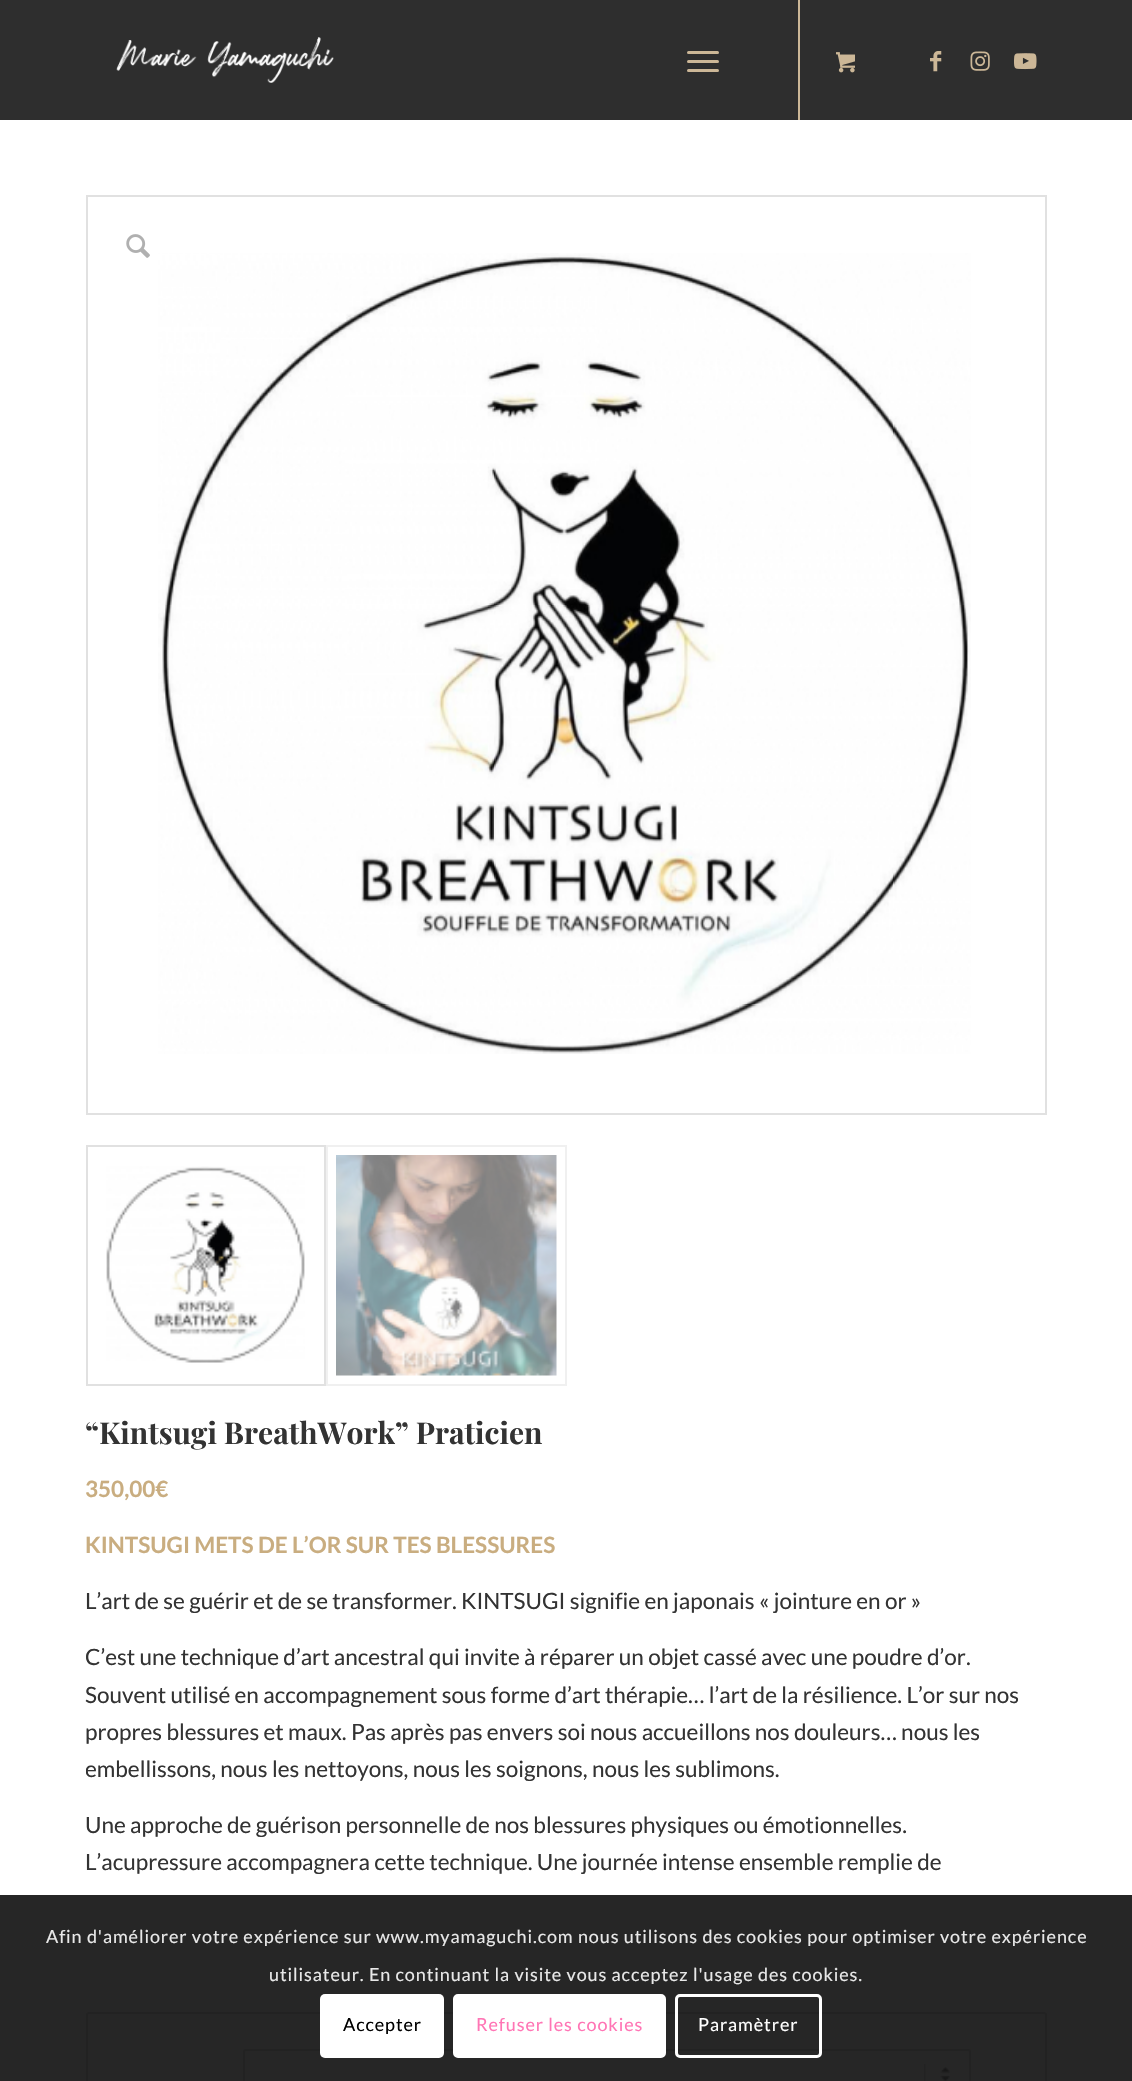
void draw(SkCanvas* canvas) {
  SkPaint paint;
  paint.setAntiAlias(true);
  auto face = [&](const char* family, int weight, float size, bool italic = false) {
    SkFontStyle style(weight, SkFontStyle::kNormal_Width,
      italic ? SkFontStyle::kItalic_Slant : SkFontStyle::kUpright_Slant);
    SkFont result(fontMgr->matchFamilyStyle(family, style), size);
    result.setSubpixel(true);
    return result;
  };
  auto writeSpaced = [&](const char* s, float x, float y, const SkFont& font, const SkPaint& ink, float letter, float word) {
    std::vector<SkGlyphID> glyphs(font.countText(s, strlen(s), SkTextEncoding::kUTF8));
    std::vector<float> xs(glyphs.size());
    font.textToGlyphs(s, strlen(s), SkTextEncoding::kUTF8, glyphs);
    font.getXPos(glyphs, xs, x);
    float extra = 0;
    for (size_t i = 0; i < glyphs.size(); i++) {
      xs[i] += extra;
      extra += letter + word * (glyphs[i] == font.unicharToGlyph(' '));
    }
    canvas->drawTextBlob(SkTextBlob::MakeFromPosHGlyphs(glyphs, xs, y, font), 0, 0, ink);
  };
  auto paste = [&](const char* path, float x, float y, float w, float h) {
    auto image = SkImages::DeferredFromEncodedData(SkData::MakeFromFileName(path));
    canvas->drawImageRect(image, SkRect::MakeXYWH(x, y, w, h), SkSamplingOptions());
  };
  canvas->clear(0xffffffff);
  paint.setColor(0xff2e2e2e);
  canvas->drawRect(SkRect::MakeXYWH(0, 0, 1132, 120), paint);
  paste("img/1.png", 116, 37, 218, 46);
  paint.setColor(0xffccb797);
  canvas->drawRect(SkRect::MakeXYWH(798, 0, 2, 120), paint);
  canvas->drawRoundRect(SkRect::MakeXYWH(687, 60, 32, 3), 1.5f, 1.5f, paint);
  canvas->drawRoundRect(SkRect::MakeXYWH(687, 51, 32, 3), 1.5f, 1.5f, paint);
  canvas->drawRoundRect(SkRect::MakeXYWH(687, 69, 32, 3), 1.5f, 1.5f, paint);
  paste("img/2.png", 836, 52, 19, 21);
  paste("img/3.png", 930, 51, 12, 21);
  paste("img/4.png", 970, 51, 20, 20);
  paste("img/5.png", 1014, 53, 23, 17);
  paint.setStroke(true);
  paint.setStrokeWidth(2);
  paint.setColor(0xffe1e1e1);
  canvas->drawRect(SkRect::MakeXYWH(87, 196, 959, 918), paint);
  paste("img/6.png", 158, 253, 813, 801);
  canvas->drawRect(SkRect::MakeXYWH(87, 1146, 238, 239), paint);
  paste("img/7.png", 106, 1166, 199, 197);
  paint.setColor(0xfff0f0f0);
  canvas->drawRect(SkRect::MakeXYWH(327, 1146, 239, 239), paint);
  paste("img/8.png", 336, 1155, 221, 221);
  paste("img/9.png", 126, 234, 24, 24);
  paint.setStroke(false);
  paint.setColor(0xfffcfcfc);
  canvas->drawRoundRect(SkRect::MakeXYWH(87, 2013, 959, 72), 2, 2, paint);
  paint.setStroke(true);
  paint.setColor(0xffe1e1e1);
  canvas->drawRoundRect(SkRect::MakeXYWH(87, 2013, 959, 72), 2, 2, paint);
  paint.setStroke(false);
  paint.setColor(0xffffffff);
  canvas->drawRoundRect(SkRect::MakeXYWH(243, 2049, 728, 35), 3, 3, paint);
  paste("img/10.png", 924, 2064, 27, 17);
  paint.setStroke(true);
  paint.setColor(0xffe1e1e1);
  canvas->drawRoundRect(SkRect::MakeXYWH(244, 2050, 726, 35), 2, 2, paint);
  paint.setStroke(false);
  paint.setColor(0xd9000000);
  canvas->drawRect(SkRect::MakeXYWH(0, 1895, 1132, 186), paint);
  paint.setColor(0xffffffff);
  canvas->drawRoundRect(SkRect::MakeXYWH(320, 1994, 124, 64), 5, 5, paint);
  canvas->drawRoundRect(SkRect::MakeXYWH(454.5f, 1995.5f, 210, 61), 3.5f, 3.5f, paint);
  paint.setStroke(true);
  paint.setStrokeWidth(3);
  canvas->drawRoundRect(SkRect::MakeXYWH(454.5f, 1995.5f, 210, 61), 3.5f, 3.5f, paint);
  canvas->drawRoundRect(SkRect::MakeXYWH(676.5f, 1995.5f, 144, 61), 3.5f, 3.5f, paint);
  auto f0 = face("Playfair Display", 700, 30);
  paint.setStroke(false);
  paint.setColor(0xff333333);
  canvas->drawString("“Kintsugi BreathWork” Praticien", 85, 1444, f0, paint);
  auto f1 = face("Lato", 700, 22.5f);
  paint.setColor(0xffc9ad80);
  canvas->drawString("350,00€", 85, 1497, f1, paint);
  canvas->drawString("KINTSUGI METS DE L’OR SUR TES BLESSURES", 85, 1553, f1, paint);
  auto f2 = face("Lato", 400, 22.5f);
  paint.setColor(0xff333333);
  {
    const struct { const char* s; float x, y; } items[] = {
      {"L’art de se guérir et de se transformer. KINTSUGI signifie en japonais « jointure en or »", 85, 1609},
      {"C’est une technique d’art ancestral qui invite à réparer un objet cassé avec une poudre d’or.", 85, 1665},
      {"Souvent utilisé en accompagnement sous forme d’art thérapie… l’art de la résilience. L’or sur nos", 85, 1703},
      {"propres blessures et maux. Pas après pas envers soi nous accueillons nos douleurs… nous les", 85, 1740},
    };
    for (auto [s, x, y] : items) {
      canvas->drawString(s, x, y, f2, paint);
    }
  }
  canvas->save();
  canvas->clipRect(SkRect::MakeXYWH(86, 1416, 961, 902));
  canvas->drawString("embellissons, nous les nettoyons, nous les soignons, nous les sublimons.", 85, 1777, f2, paint);
  canvas->restore();
  canvas->drawString("Une approche de guérison personnelle de nos blessures physiques ou émotionnelles.", 85, 1833, f2, paint);
  canvas->drawString("L’acupressure accompagnera cette technique. Une journée intense ensemble remplie de", 85, 1870, f2, paint);
  auto f3 = face("Lato", 400, 18);
  paint.setColor(0xffe8e8e8);
  writeSpaced("Afin d'améliorer votre expérience sur www.myamaguchi.com nous utilisons des cookies pour optimiser votre expérience", 46, 1943, f3, paint, 0.9f, 0);
  writeSpaced("utilisateur. En continuant la visite vous acceptez l'usage des cookies.", 269, 1981, f3, paint, 0.9f, 0);
  paint.setColor(0xff000000);
  writeSpaced("Accepter", 343, 2031, f3, paint, 0.9f, 0);
  paint.setColor(0xffff75b5);
  writeSpaced("Refuser les cookies", 476, 2031, f3, paint, 0.9f, 0);
  paint.setColor(0xffffffff);
  writeSpaced("Paramètrer", 698, 2031, f3, paint, 0.9f, 0);
}
